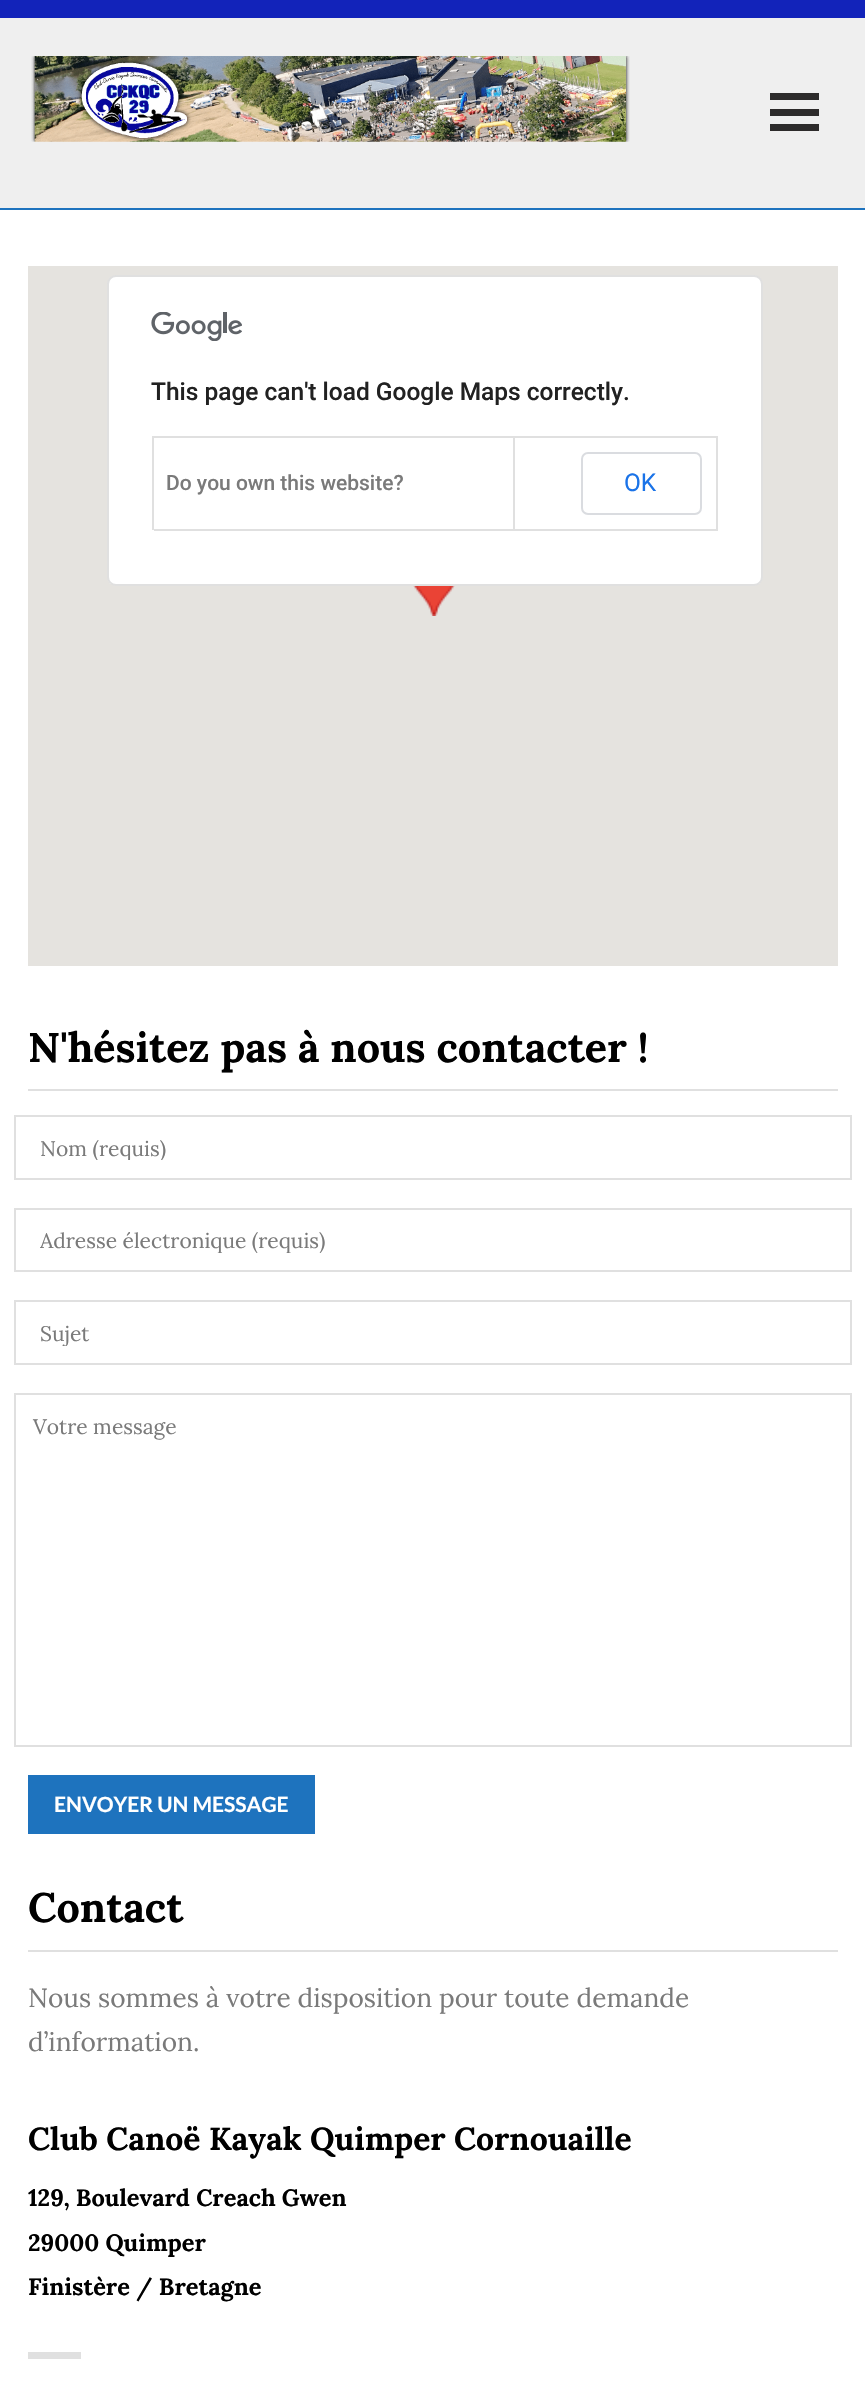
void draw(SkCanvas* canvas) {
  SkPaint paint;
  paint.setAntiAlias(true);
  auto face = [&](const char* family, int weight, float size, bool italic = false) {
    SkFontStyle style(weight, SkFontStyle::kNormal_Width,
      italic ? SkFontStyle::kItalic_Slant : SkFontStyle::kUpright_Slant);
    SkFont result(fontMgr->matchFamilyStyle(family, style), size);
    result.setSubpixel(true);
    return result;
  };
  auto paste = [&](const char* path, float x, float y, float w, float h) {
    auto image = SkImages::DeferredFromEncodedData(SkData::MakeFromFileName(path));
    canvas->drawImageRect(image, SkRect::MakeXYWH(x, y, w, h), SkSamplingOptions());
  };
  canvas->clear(0xffffffff);
  {
    const struct { float x, y, w, h; SkColor color; } items[] = {
      {0, 18, 865, 190, 0xffefefef},
      {0, 208, 865, 2, 0xff1e73be},
      {0, 0, 865, 18, 0xff1223ba},
    };
    for (auto [x, y, w, h, color] : items) {
      paint.setColor(color);
      canvas->drawRect(SkRect::MakeXYWH(x, y, w, h), paint);
    }
  }
  paste("img/1.png", 31, 56, 599, 86);
  {
    const struct { float x, y, w, h; SkColor color; } items[] = {
      {770, 93, 49, 7, 0xff2d2b2b},
      {770, 109, 49, 7, 0xff2d2b2b},
      {770, 124, 49, 7, 0xff2d2b2b},
      {28, 266, 810, 700, 0xffe5e3df},
    };
    for (auto [x, y, w, h, color] : items) {
      paint.setColor(color);
      canvas->drawRect(SkRect::MakeXYWH(x, y, w, h), paint);
    }
  }
  paste("img/2.png", 413, 586, 42, 30);
  paint.setColor(0xffffffff);
  canvas->drawRoundRect(SkRect::MakeXYWH(107, 275, 656, 311), 9, 9, paint);
  paint.setStroke(true);
  paint.setStrokeWidth(2);
  paint.setColor(0x1f000000);
  canvas->drawRoundRect(SkRect::MakeXYWH(108, 276, 654, 309), 8, 8, paint);
  paste("img/3.png", 151, 312, 91, 29);
  paint.setStroke(false);
  {
    const struct { float x, y, w, h; SkColor color; } items[] = {
      {152, 436, 566, 2, 0xffe0e0e0},
      {152, 436, 2, 94, 0xffe0e0e0},
      {513, 438, 2, 92, 0xffe0e0e0},
      {154, 529, 361, 2, 0xffe0e0e0},
      {716, 438, 2, 92, 0xffe0e0e0},
      {515, 529, 203, 2, 0xffe0e0e0},
    };
    for (auto [x, y, w, h, color] : items) {
      paint.setColor(color);
      canvas->drawRect(SkRect::MakeXYWH(x, y, w, h), paint);
    }
  }
  paint.setStroke(true);
  paint.setColor(0xffdadce0);
  canvas->drawRoundRect(SkRect::MakeXYWH(582, 453, 119, 61), 6, 6, paint);
  paint.setStroke(false);
  paint.setColor(0xffe0e0e0);
  canvas->drawRect(SkRect::MakeXYWH(28, 1089, 810, 2), paint);
  paint.setStroke(true);
  canvas->drawRect(SkRect::MakeXYWH(15, 1116, 836, 63), paint);
  canvas->drawRect(SkRect::MakeXYWH(15, 1209, 836, 62), paint);
  canvas->drawRect(SkRect::MakeXYWH(15, 1301, 836, 63), paint);
  canvas->drawRect(SkRect::MakeXYWH(15, 1394, 836, 352), paint);
  paint.setStroke(false);
  {
    const struct { float x, y, w, h; SkColor color; } items[] = {
      {28, 1775, 287, 59, 0xff1e73be},
      {28, 1950, 810, 2, 0xffe0e0e0},
      {28, 2352, 53, 7, 0xffe0e0e0},
    };
    for (auto [x, y, w, h, color] : items) {
      paint.setColor(color);
      canvas->drawRect(SkRect::MakeXYWH(x, y, w, h), paint);
    }
  }
  auto f0 = face("Roboto", 500, 24.5f);
  paint.setColor(0xff212121);
  canvas->drawString("This page can't load Google Maps correctly.", 151, 400, f0, paint);
  auto f1 = face("Roboto", 500, 21);
  paint.setColor(0xff7a7a7a);
  canvas->drawString("Do you own this website?", 166, 490, f1, paint);
  auto f2 = face("Roboto", 400, 24.5f);
  paint.setColor(0xff1a73e8);
  canvas->drawString("OK", 624, 491, f2, paint);
  auto f3 = face("Lora", 700, 41.3f);
  paint.setColor(0xff000000);
  canvas->drawString("N'hésitez pas à nous contacter !", 28, 1062, f3, paint);
  canvas->save();
  canvas->clipRect(SkRect::MakeXYWH(40, 1134, 786, 26));
  auto f4 = face("Lora", 400, 21);
  paint.setColor(0xff7a7a7a);
  canvas->drawString("Nom (requis)", 40, 1156, f4, paint);
  canvas->restore();
  canvas->save();
  canvas->clipRect(SkRect::MakeXYWH(40, 1227, 786, 26));
  canvas->drawString("Adresse électronique (requis)", 40, 1248, f4, paint);
  canvas->restore();
  canvas->save();
  canvas->clipRect(SkRect::MakeXYWH(40, 1320, 786, 26));
  canvas->drawString("Sujet", 40, 1341, f4, paint);
  canvas->restore();
  canvas->drawString("Votre message", 33, 1434, f4, paint);
  auto f5 = face("Lato", 700, 21);
  paint.setColor(0xffffffff);
  canvas->drawString("ENVOYER UN MESSAGE", 54, 1812, f5, paint);
  paint.setColor(0xff000000);
  canvas->drawString("Contact", 28, 1922, f3, paint);
  auto f6 = face("Lora", 400, 26.25f);
  paint.setColor(0xff7a7a7a);
  canvas->drawString("Nous sommes à votre disposition pour toute demande", 28, 2007, f6, paint);
  canvas->drawString("d’information.", 28, 2051, f6, paint);
  auto f7 = face("Lora", 700, 31.9f);
  paint.setColor(0xff000000);
  canvas->drawString("Club Canoë Kayak Quimper Cornouaille", 28, 2150, f7, paint);
  auto f8 = face("Lora", 700, 23.6f);
  {
    const struct { const char* s; float x, y; } items[] = {
      {"129, Boulevard Creach Gwen", 28, 2206},
      {"29000 Quimper", 28, 2251},
      {"Finistère / Bretagne", 28, 2295},
    };
    for (auto [s, x, y] : items) {
      canvas->drawString(s, x, y, f8, paint);
    }
  }
}
